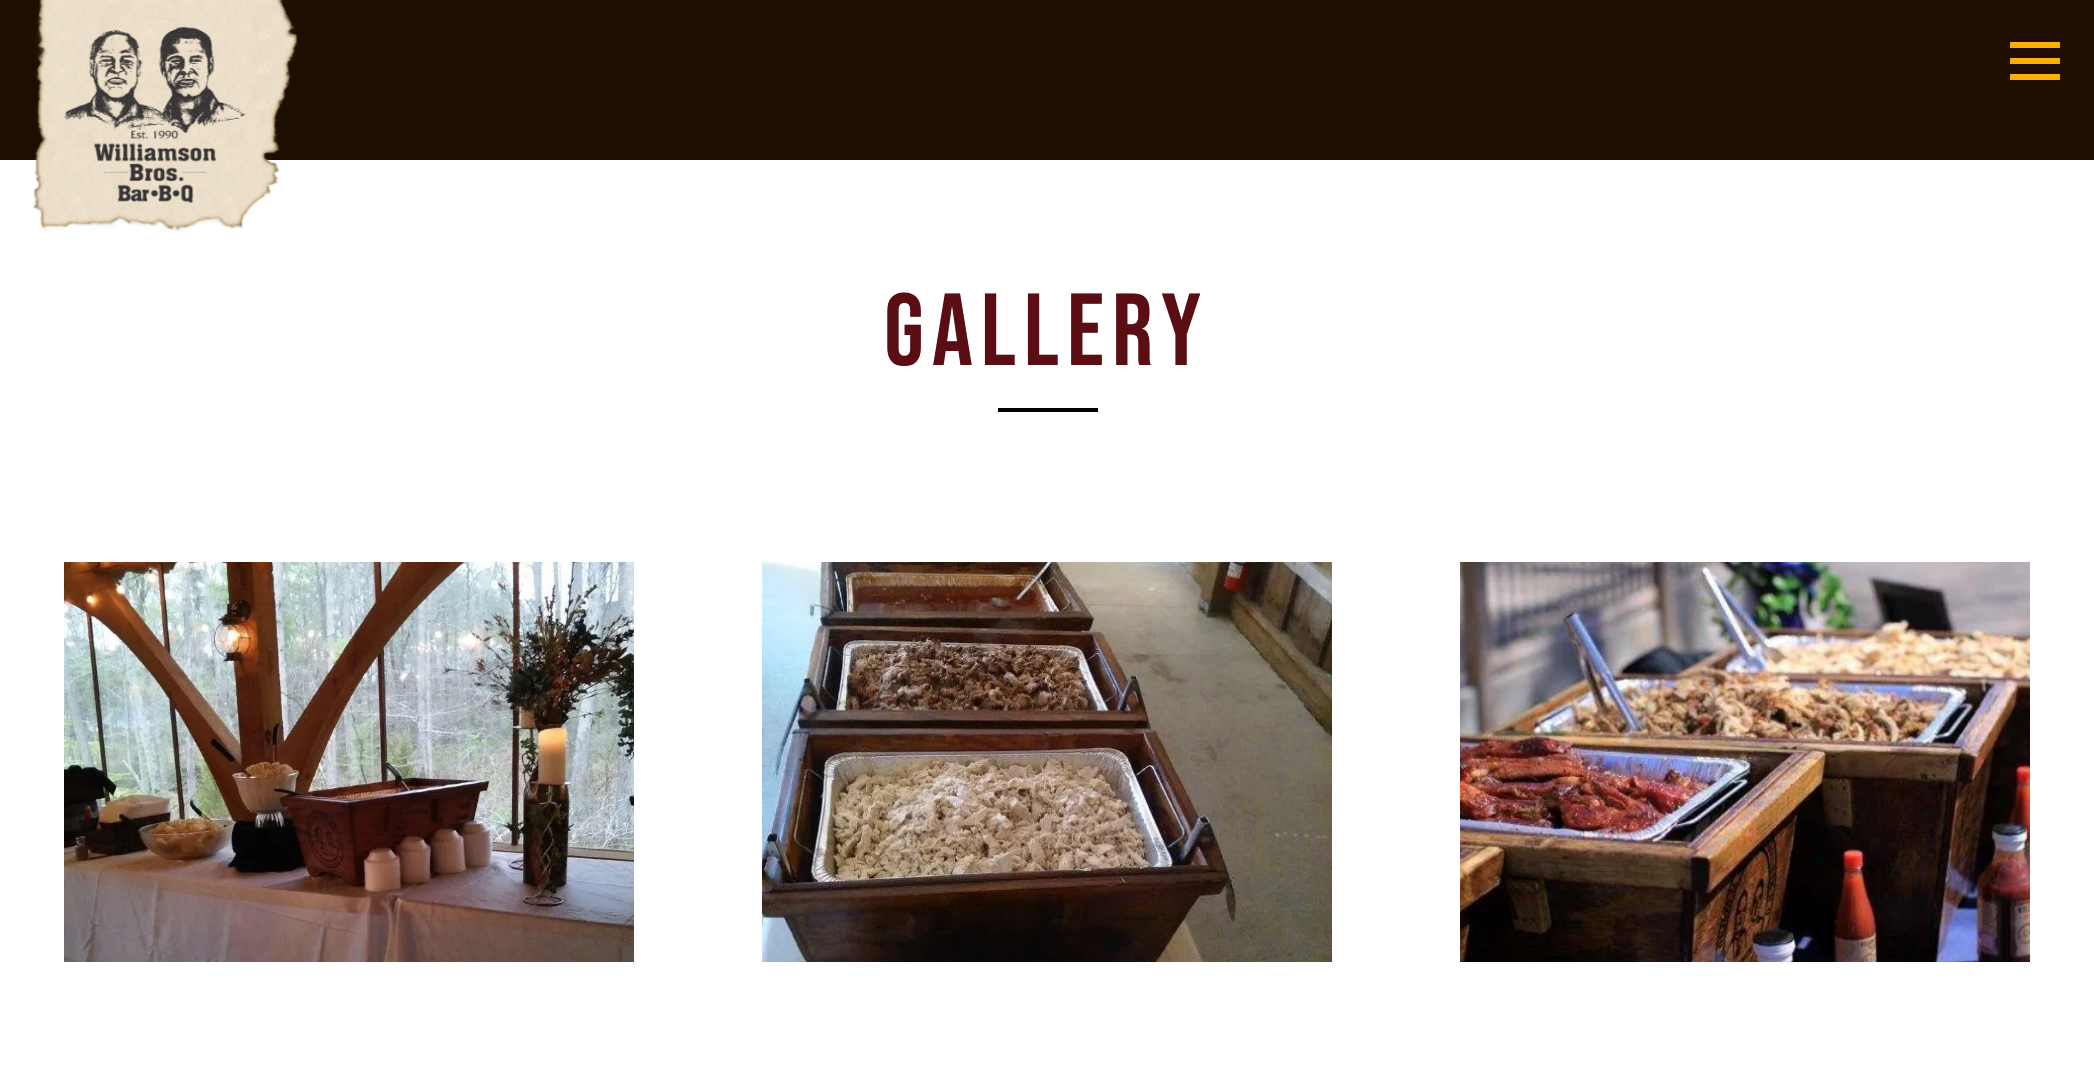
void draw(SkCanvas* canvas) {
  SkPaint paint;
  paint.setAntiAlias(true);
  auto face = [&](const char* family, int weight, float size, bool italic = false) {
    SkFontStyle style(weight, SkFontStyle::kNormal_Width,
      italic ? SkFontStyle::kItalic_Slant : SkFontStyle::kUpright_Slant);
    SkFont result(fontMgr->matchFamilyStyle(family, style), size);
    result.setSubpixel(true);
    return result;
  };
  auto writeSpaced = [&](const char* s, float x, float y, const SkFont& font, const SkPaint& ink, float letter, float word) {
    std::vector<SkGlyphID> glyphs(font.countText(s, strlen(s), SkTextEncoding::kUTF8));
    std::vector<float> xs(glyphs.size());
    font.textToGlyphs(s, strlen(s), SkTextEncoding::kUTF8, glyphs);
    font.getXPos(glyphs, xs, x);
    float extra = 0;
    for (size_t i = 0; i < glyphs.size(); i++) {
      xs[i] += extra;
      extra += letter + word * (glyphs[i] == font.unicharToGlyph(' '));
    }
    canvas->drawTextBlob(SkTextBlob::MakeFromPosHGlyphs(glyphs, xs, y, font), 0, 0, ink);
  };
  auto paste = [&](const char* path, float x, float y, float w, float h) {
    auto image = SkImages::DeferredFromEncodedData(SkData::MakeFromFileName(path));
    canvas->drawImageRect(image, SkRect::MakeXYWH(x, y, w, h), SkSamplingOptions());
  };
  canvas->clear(0xffffffff);
  paint.setColor(0xff1e0d01);
  canvas->drawRect(SkRect::MakeXYWH(0, 0, 2094, 160), paint);
  paste("img/1.png", 33, 0, 265, 232);
  {
    const struct { float x, y, w, h; SkColor color; } items[] = {
      {2010, 42, 50, 6, 0xffffad00},
      {2010, 58, 50, 6, 0xffffad00},
      {2010, 74, 50, 6, 0xffffad00},
      {998, 408, 100, 4, 0xff000000},
    };
    for (auto [x, y, w, h, color] : items) {
      paint.setColor(color);
      canvas->drawRect(SkRect::MakeXYWH(x, y, w, h), paint);
    }
  }
  paste("img/2.png", 64, 562, 570, 400);
  paste("img/3.png", 762, 562, 570, 400);
  paste("img/4.png", 1460, 562, 570, 400);
  auto f0 = face("Bebas Neue", 400, 102);
  paint.setColor(0xff5a0e14);
  writeSpaced("GALLERY", 884, 365, f0, paint, 8, 0);
}
